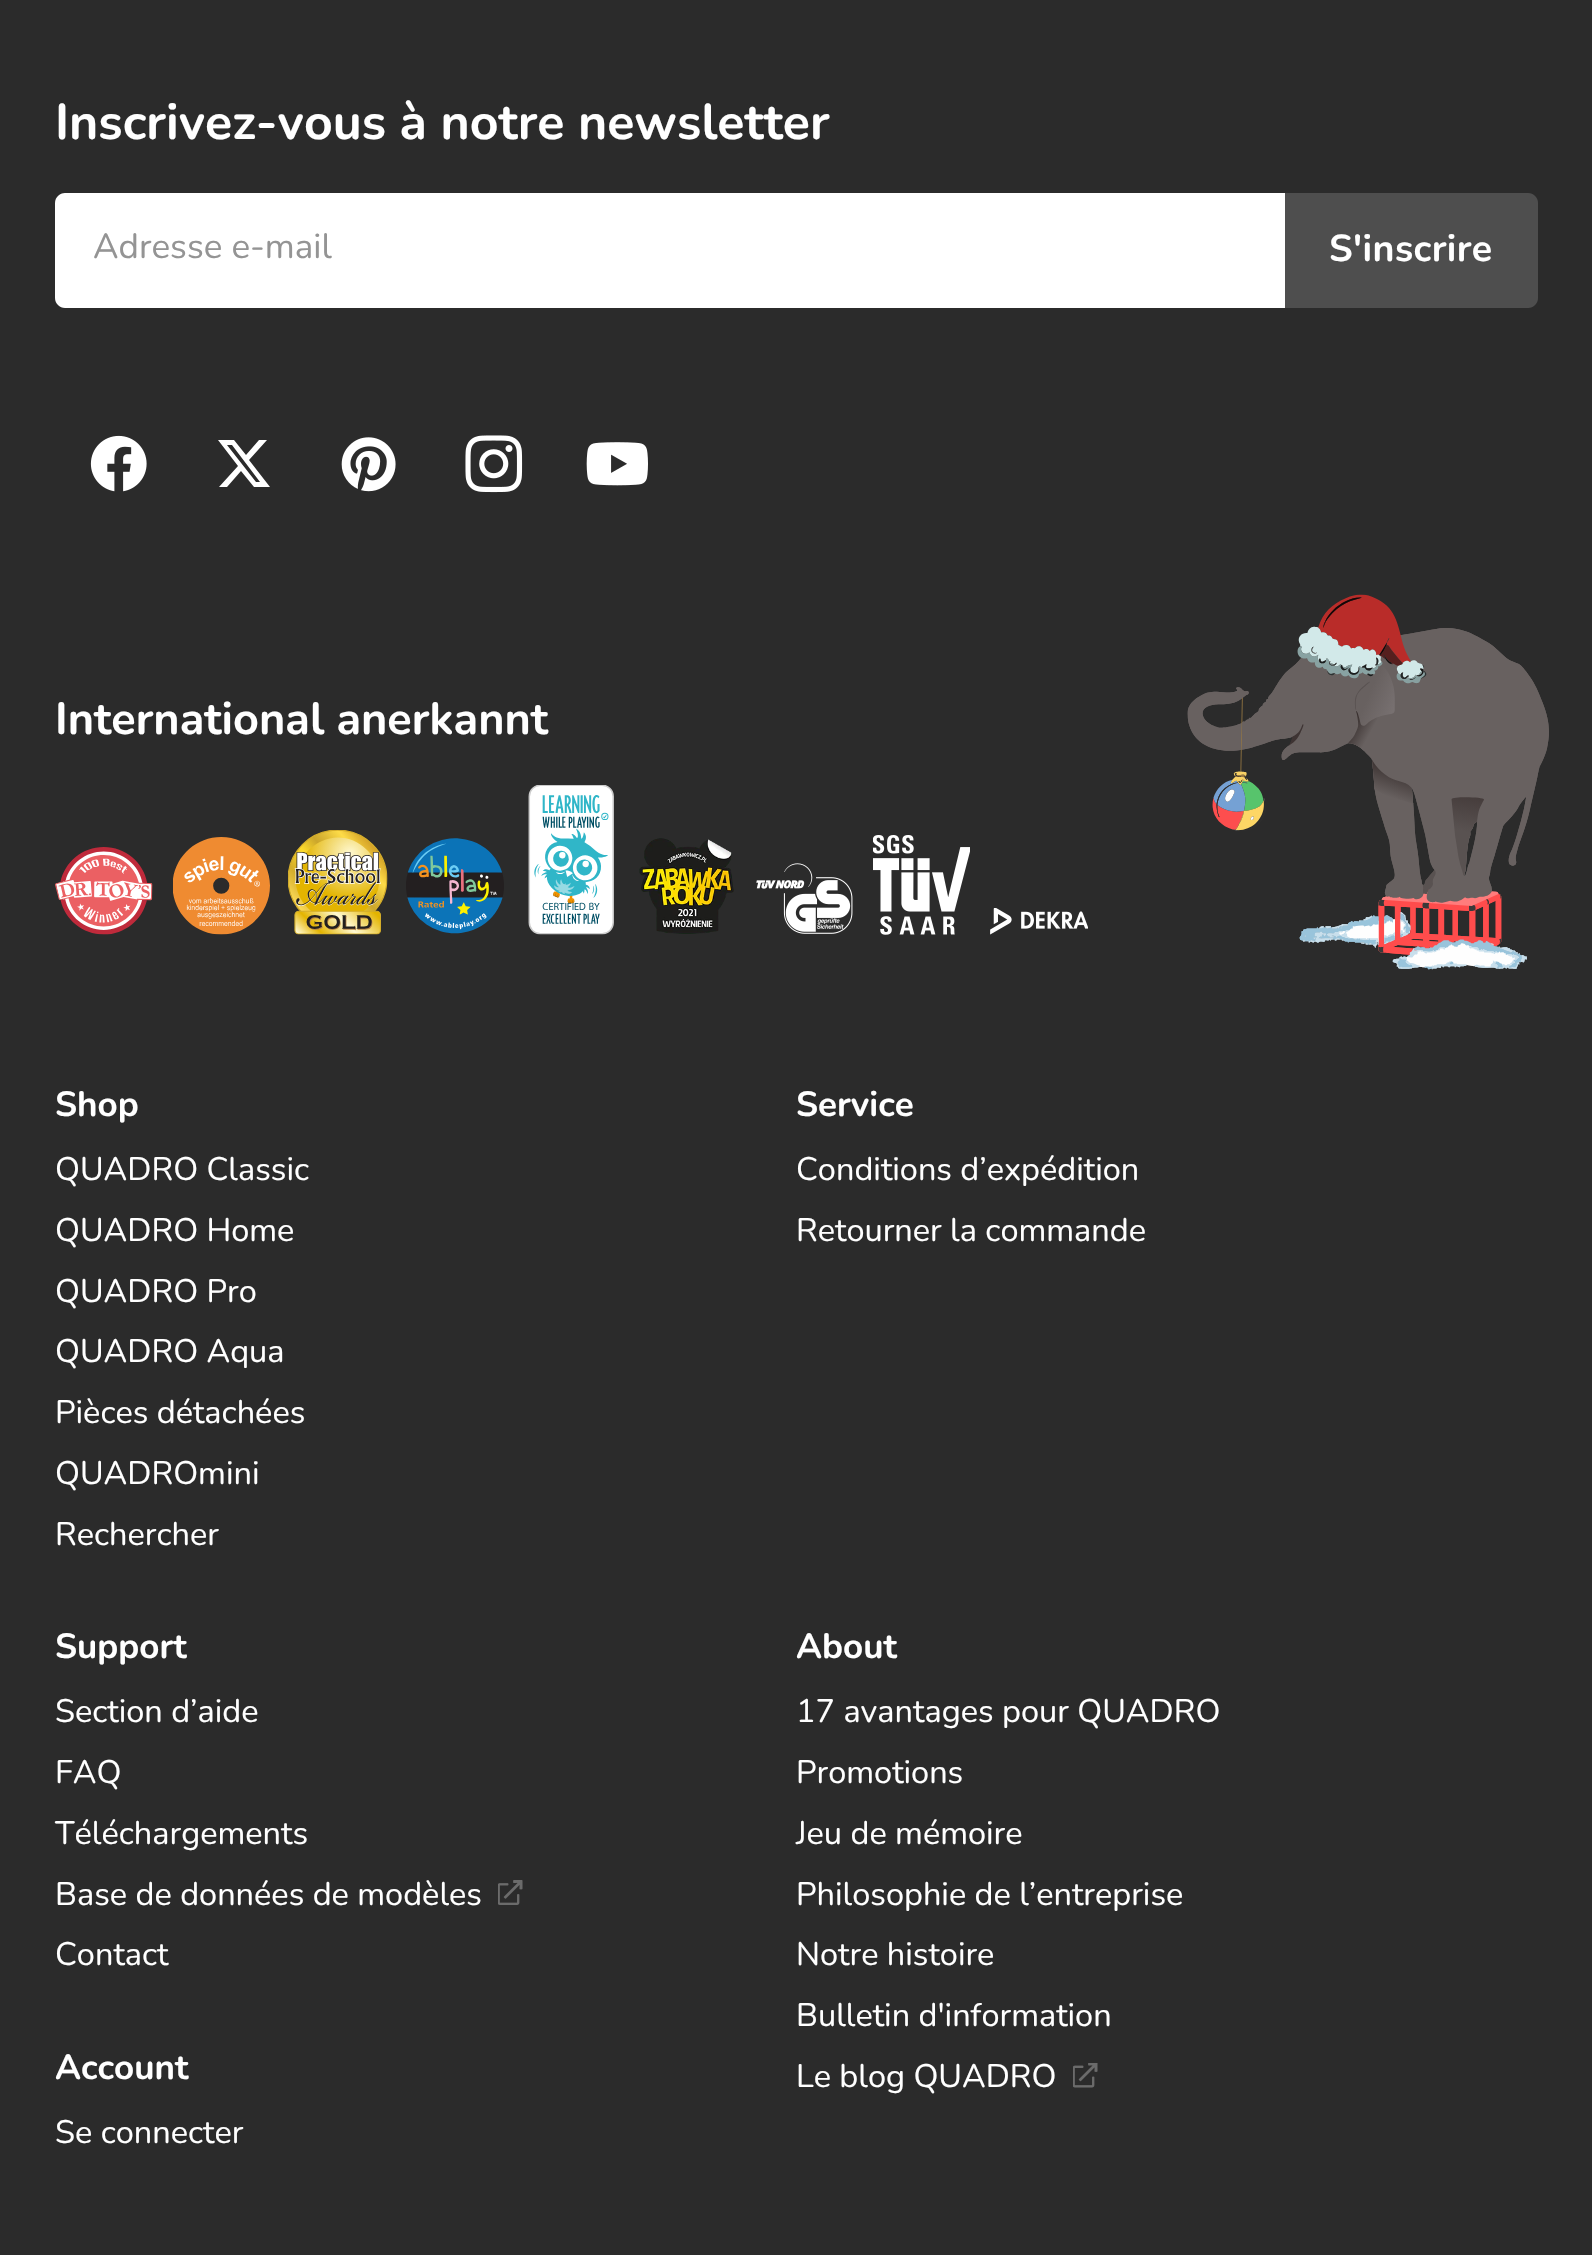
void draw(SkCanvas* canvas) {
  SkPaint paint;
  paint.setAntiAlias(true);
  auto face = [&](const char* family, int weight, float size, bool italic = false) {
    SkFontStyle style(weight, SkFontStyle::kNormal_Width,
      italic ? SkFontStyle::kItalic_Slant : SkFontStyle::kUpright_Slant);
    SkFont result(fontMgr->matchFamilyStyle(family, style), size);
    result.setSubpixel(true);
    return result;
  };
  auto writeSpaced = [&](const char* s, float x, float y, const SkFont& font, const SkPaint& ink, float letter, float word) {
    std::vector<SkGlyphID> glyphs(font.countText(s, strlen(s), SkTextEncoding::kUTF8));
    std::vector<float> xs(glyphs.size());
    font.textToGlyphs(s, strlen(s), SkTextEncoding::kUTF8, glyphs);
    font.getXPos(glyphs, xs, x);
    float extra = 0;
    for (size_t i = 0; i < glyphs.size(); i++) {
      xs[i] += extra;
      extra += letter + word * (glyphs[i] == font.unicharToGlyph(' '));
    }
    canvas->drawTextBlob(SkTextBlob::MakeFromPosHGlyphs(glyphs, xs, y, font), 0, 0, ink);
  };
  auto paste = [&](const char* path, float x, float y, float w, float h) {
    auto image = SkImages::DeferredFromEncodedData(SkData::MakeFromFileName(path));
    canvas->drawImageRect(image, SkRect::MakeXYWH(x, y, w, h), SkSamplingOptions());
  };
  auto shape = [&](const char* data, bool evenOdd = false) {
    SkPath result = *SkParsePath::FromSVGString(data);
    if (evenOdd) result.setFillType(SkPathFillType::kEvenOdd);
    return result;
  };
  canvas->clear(0xff2b2b2b);
  paint.setColor(0xffffffff);
  canvas->drawPath(shape("M65 193H1285V308H65C59.5 308 55 303.5 55 298V203C55 197.5 59.5 193 65 193Z"), paint);
  paint.setColor(0xff4e4e4e);
  canvas->drawPath(shape("M1285 193H1528C1533.5 193 1538 197.5 1538 203V298C1538 303.5 1533.5 308 1528 308H1285Z"), paint);
  paste("img/1.png", 90, 435, 57, 57);
  paint.setColor(0xffffffff);
  canvas->drawPath(shape("M259 440H267L249 460L270 487H254L241 471L227 487H219L238 466L218 440H234L246 455ZM256 482H260L232 445H227Z"), paint);
  paste("img/2.png", 341, 437, 55, 55);
  paste("img/3.png", 465, 435, 58, 58);
  paste("img/4.png", 586, 442, 62, 44);
  paste("img/5.png", 1187, 594, 362, 376);
  paste("img/6.png", 55, 847, 98, 88);
  paste("img/7.png", 173, 837, 97, 98);
  paste("img/8.png", 288, 830, 100, 105);
  paste("img/9.png", 406, 838, 98, 96);
  paste("img/10.png", 528, 785, 86, 150);
  paste("img/11.png", 639, 838, 95, 96);
  paste("img/12.png", 756, 863, 97, 71);
  paste("img/13.png", 873, 835, 97, 100);
  paste("img/14.png", 990, 908, 98, 27);
  paste("img/15.png", 498, 1880, 25, 25);
  paste("img/16.png", 1073, 2063, 25, 25);
  auto f0 = face("Nunito", 200, 50);
  canvas->drawString("Inscrivez-vous à notre newsletter", 55, 139, f0, paint);
  auto f1 = face("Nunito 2", 200, 35);
  paint.setColor(0xff949494);
  canvas->drawString("Adresse e-mail", 93, 258, f1, paint);
  auto f2 = face("Nunito", 200, 37.5f);
  paint.setColor(0xffffffff);
  writeSpaced("S'inscrire", 1329, 261, f2, paint, 0.4f, 0);
  auto f3 = face("Nunito", 200, 45);
  canvas->drawString("International anerkannt", 55, 734, f3, paint);
  auto f4 = face("Nunito", 200, 35);
  canvas->drawString("Shop", 55, 1116, f4, paint);
  auto f5 = face("Nunito 2", 200, 32.5f);
  {
    const struct { const char* s; float x, y; } items[] = {
      {"QUADRO Classic", 55, 1180},
      {"QUADRO Home", 55, 1241},
      {"QUADRO Pro", 55, 1302},
      {"QUADRO Aqua", 55, 1362},
      {"Pièces détachées", 55, 1423},
      {"QUADROmini", 55, 1484},
      {"Rechercher", 55, 1545},
    };
    for (auto [s, x, y] : items) {
      canvas->drawString(s, x, y, f5, paint);
    }
  }
  canvas->drawString("Service", 796, 1116, f4, paint);
  canvas->drawString("Conditions d’expédition", 796, 1180, f5, paint);
  canvas->drawString("Retourner la commande", 796, 1241, f5, paint);
  canvas->drawString("Support", 55, 1658, f4, paint);
  {
    const struct { const char* s; float x, y; } items[] = {
      {"Section d’aide", 55, 1722},
      {"FAQ", 55, 1783},
      {"Téléchargements", 55, 1844},
      {"Base de données de modèles", 55, 1905},
      {"Contact", 55, 1965},
    };
    for (auto [s, x, y] : items) {
      canvas->drawString(s, x, y, f5, paint);
    }
  }
  canvas->drawString("Account", 55, 2079, f4, paint);
  canvas->drawString("Se connecter", 55, 2143, f5, paint);
  canvas->drawString("About", 796, 1658, f4, paint);
  {
    const struct { const char* s; float x, y; } items[] = {
      {"17 avantages pour QUADRO", 796, 1722},
      {"Promotions", 796, 1783},
      {"Jeu de mémoire", 796, 1844},
      {"Philosophie de l’entreprise", 796, 1905},
      {"Notre histoire", 796, 1965},
      {"Bulletin d'information", 796, 2026},
      {"Le blog QUADRO", 796, 2087},
    };
    for (auto [s, x, y] : items) {
      canvas->drawString(s, x, y, f5, paint);
    }
  }
}
